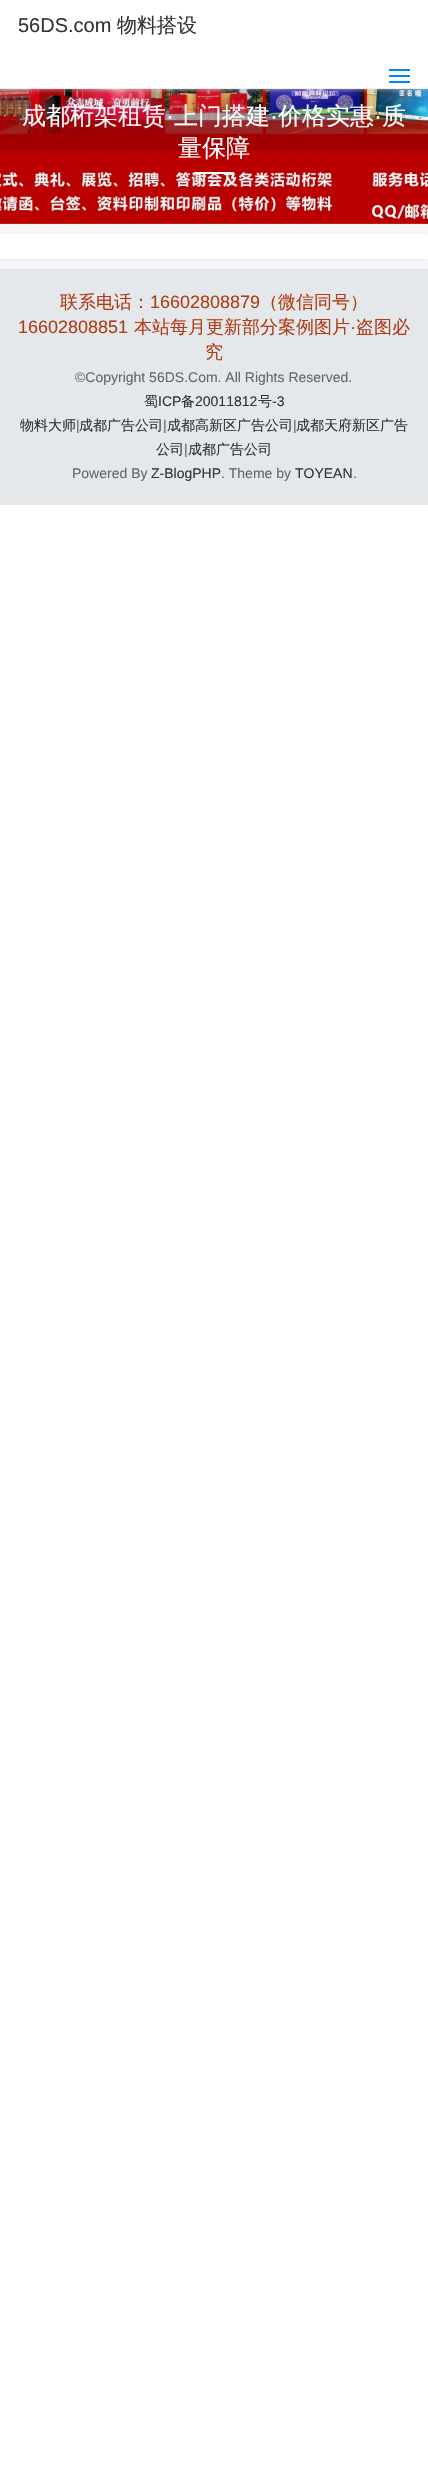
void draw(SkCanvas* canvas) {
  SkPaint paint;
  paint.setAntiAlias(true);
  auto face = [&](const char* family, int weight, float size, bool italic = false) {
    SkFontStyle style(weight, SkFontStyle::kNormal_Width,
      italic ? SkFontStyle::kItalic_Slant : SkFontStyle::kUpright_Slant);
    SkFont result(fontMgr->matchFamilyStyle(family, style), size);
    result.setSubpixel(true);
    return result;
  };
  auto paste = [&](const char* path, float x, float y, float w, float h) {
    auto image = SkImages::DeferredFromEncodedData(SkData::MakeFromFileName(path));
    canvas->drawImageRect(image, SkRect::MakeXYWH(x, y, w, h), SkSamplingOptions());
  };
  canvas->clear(0xffffffff);
  paint.setColor(0xfff6f8f9);
  canvas->drawRect(SkRect::MakeXYWH(0, 224, 428, 45), paint);
  paste("img/1.png", 0, 89, 428, 135);
  paint.setColor(0x80eeeeee);
  paint.setMaskFilter(SkMaskFilter::MakeBlur(kNormal_SkBlurStyle, 2));
  canvas->drawRect(SkRect::MakeXYWH(0, 1, 428, 89), paint);
  paint.setMaskFilter(nullptr);
  {
    const struct { float x, y, w, h; SkColor color; } items[] = {
      {0, 0, 428, 88, 0xffffffff},
      {0, 88, 428, 1, 0xffeeeeee},
      {389, 69, 21, 2, 0xff0188fb},
      {389, 75, 21, 2, 0xff0188fb},
      {389, 81, 21, 2, 0xff0188fb},
      {194, 172, 40, 2, 0xffffffff},
    };
    for (auto [x, y, w, h, color] : items) {
      paint.setColor(color);
      canvas->drawRect(SkRect::MakeXYWH(x, y, w, h), paint);
    }
  }
  paint.setColor(0x0d000000);
  paint.setMaskFilter(SkMaskFilter::MakeBlur(kNormal_SkBlurStyle, 2.5f));
  canvas->drawRect(SkRect::MakeXYWH(0, 235, 428, 25), paint);
  paint.setMaskFilter(nullptr);
  {
    const struct { float x, y, w, h; SkColor color; } items[] = {
      {0, 234, 428, 25, 0xffffffff},
      {0, 270, 428, 235, 0xffe4e8eb},
      {0, 269, 428, 1, 0xffdbe0e8},
    };
    for (auto [x, y, w, h, color] : items) {
      paint.setColor(color);
      canvas->drawRect(SkRect::MakeXYWH(x, y, w, h), paint);
    }
  }
  auto f0 = face("Liberation Sans", 400, 20);
  paint.setColor(0xff333333);
  canvas->drawString("56DS.com", 18, 32, f0, paint);
  auto f1 = face("WenQuanYi Zen Hei", 500, 20);
  canvas->drawString("物料搭设", 117, 32, f1, paint);
  auto f2 = face("WenQuanYi Zen Hei", 500, 24);
  paint.setColor(0xffffffff);
  canvas->drawString("成都桁架租赁", 22, 124, f2, paint);
  auto f3 = face("Liberation Sans", 400, 24);
  canvas->drawString("·", 166, 124, f3, paint);
  canvas->drawString("上门搭建", 174, 124, f2, paint);
  canvas->drawString("·", 270, 124, f3, paint);
  canvas->drawString("价格实惠", 278, 124, f2, paint);
  canvas->drawString("·", 374, 124, f3, paint);
  canvas->drawString("质", 382, 124, f2, paint);
  canvas->drawString("量保障", 178, 156, f2, paint);
  auto f4 = face("WenQuanYi Zen Hei", 500, 18);
  paint.setColor(0xffb03c16);
  canvas->drawString("联系电话：", 60, 308, f4, paint);
  auto f5 = face("Liberation Sans", 400, 18);
  canvas->drawString("16602808879", 150, 308, f5, paint);
  canvas->drawString("（微信同号）", 260, 308, f4, paint);
  canvas->drawString("16602808851", 18, 333, f5, paint);
  canvas->drawString("本站每月更新部分案例图片", 134, 333, f4, paint);
  canvas->drawString("·", 350, 333, f5, paint);
  canvas->drawString("盗图必", 356, 333, f4, paint);
  canvas->drawString("究", 205, 358, f4, paint);
  auto f6 = face("Liberation Sans", 400, 14);
  paint.setColor(0xff666666);
  canvas->drawString("©Copyright 56DS.Com. All Rights Reserved.", 75, 382, f6, paint);
  auto f7 = face("WenQuanYi Zen Hei", 500, 14);
  paint.setColor(0xff333333);
  canvas->drawString("蜀", 144, 406, f7, paint);
  canvas->drawString("ICP", 158, 406, f6, paint);
  canvas->drawString("备", 181, 406, f7, paint);
  canvas->drawString("20011812", 195, 406, f6, paint);
  canvas->drawString("号", 258, 406, f7, paint);
  canvas->drawString("-3", 272, 406, f6, paint);
  canvas->drawString("物料大师", 20, 430, f7, paint);
  paint.setColor(0xff666666);
  canvas->drawString("|", 76, 430, f6, paint);
  paint.setColor(0xff333333);
  canvas->drawString("成都广告公司", 79, 430, f7, paint);
  paint.setColor(0xff666666);
  canvas->drawString("|", 163, 430, f6, paint);
  paint.setColor(0xff333333);
  canvas->drawString("成都高新区广告公司", 167, 430, f7, paint);
  paint.setColor(0xff666666);
  canvas->drawString("|", 293, 430, f6, paint);
  paint.setColor(0xff333333);
  canvas->drawString("成都天府新区广告", 296, 430, f7, paint);
  canvas->drawString("公司", 156, 454, f7, paint);
  paint.setColor(0xff666666);
  canvas->drawString("|", 184, 454, f6, paint);
  paint.setColor(0xff333333);
  canvas->drawString("成都广告公司", 188, 454, f7, paint);
  paint.setColor(0xff666666);
  canvas->drawString("Powered By", 72, 478, f6, paint);
  paint.setColor(0xff333333);
  canvas->drawString("Z-BlogPHP", 151, 478, f6, paint);
  paint.setColor(0xff666666);
  canvas->drawString(". Theme by", 221, 478, f6, paint);
  paint.setColor(0xff333333);
  canvas->drawString("TOYEAN", 295, 478, f6, paint);
  paint.setColor(0xff666666);
  canvas->drawString(".", 353, 478, f6, paint);
}
